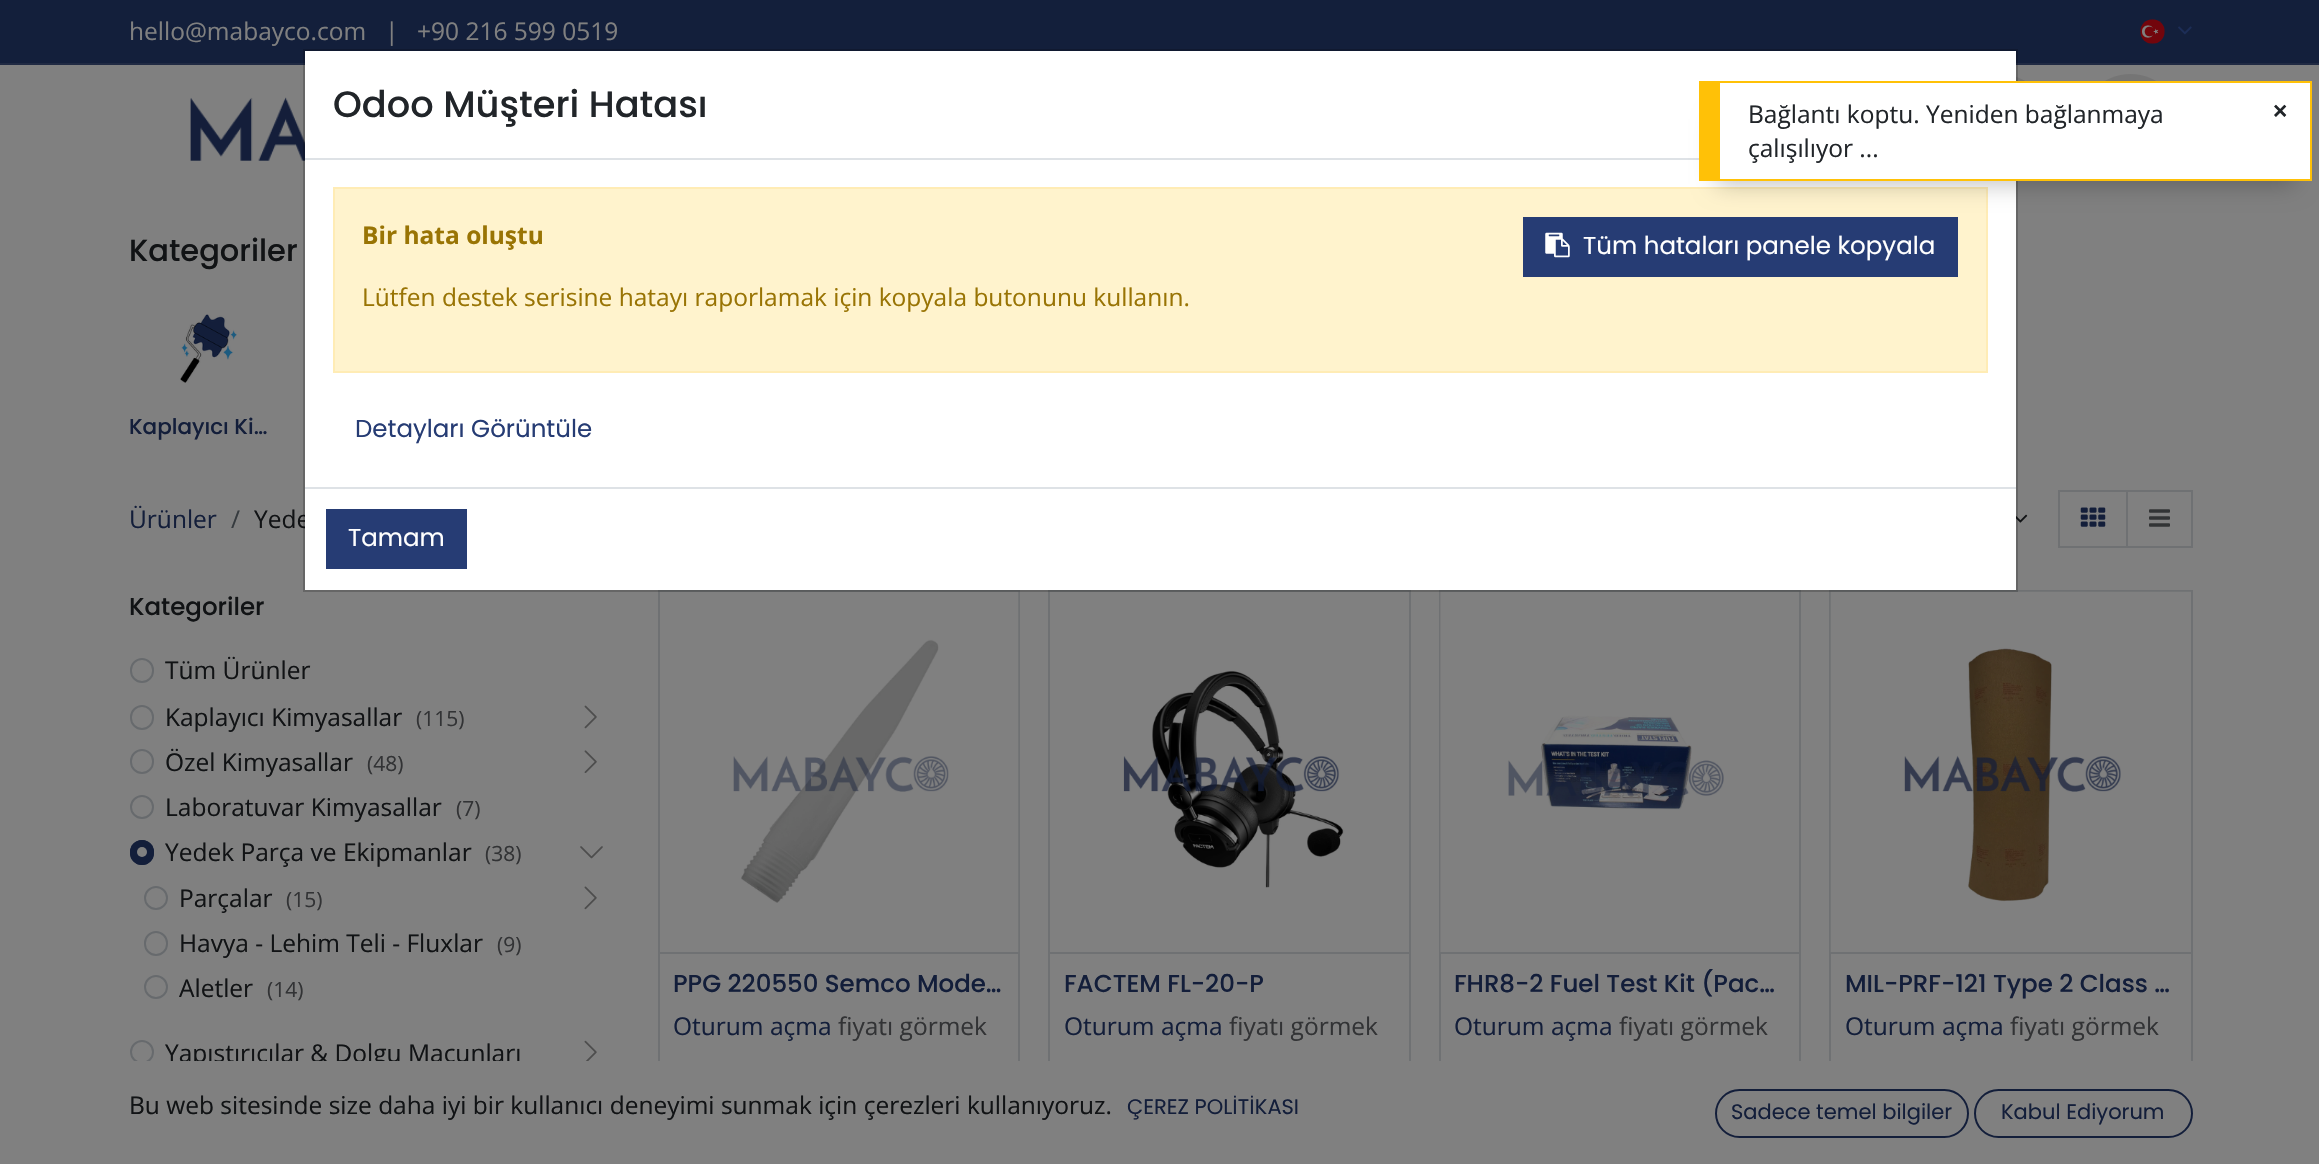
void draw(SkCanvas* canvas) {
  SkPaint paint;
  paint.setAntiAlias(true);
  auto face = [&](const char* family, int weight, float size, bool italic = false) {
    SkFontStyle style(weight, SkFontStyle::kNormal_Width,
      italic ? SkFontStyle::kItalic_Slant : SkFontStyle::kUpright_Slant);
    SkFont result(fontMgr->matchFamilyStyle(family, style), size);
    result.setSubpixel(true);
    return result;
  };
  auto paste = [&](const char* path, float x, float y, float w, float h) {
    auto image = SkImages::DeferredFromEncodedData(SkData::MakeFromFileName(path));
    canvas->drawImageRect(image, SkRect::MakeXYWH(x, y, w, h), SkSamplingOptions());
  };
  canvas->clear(0xff808080);
  paint.setColor(0xff131f3b);
  canvas->drawRect(SkRect::MakeXYWH(0, 0, 2319, 63), paint);
  paint.setColor(0xff202a43);
  canvas->drawRect(SkRect::MakeXYWH(0, 63, 2319, 2), paint);
  paste("img/1.png", 2140, 19, 25, 25);
  paste("img/2.png", 2178, 26, 14, 9);
  paste("img/3.png", 190, 97, 115, 64);
  paint.setColor(0xff757575);
  canvas->drawCircle(1999.5f, 125.5f, 51.5f, paint);
  canvas->drawCircle(2130.5f, 125.5f, 51.5f, paint);
  paste("img/4.png", 180, 314, 57, 69);
  paste("img/5.png", 2016, 514, 12, 9);
  paint.setStroke(true);
  paint.setStrokeWidth(2);
  paint.setColor(0xff6f7173);
  canvas->drawRect(SkRect::MakeXYWH(2127, 491, 65, 56), paint);
  canvas->drawRect(SkRect::MakeXYWH(2059, 491, 68, 56), paint);
  paste("img/6.png", 2080, 507, 26, 20);
  paste("img/7.png", 2149, 509, 21, 18);
  paint.setColor(0xff676a6d);
  canvas->drawRoundRect(SkRect::MakeXYWH(131, 659, 22, 23), 11, 11, paint);
  canvas->drawRoundRect(SkRect::MakeXYWH(131, 706, 22, 23), 11, 11, paint);
  paste("img/8.png", 584, 705, 13, 24);
  canvas->drawRoundRect(SkRect::MakeXYWH(131, 750, 22, 23), 11, 11, paint);
  paste("img/9.png", 584, 750, 13, 23);
  canvas->drawCircle(142, 807, 11, paint);
  paint.setStroke(false);
  paint.setColor(0xff131e3a);
  canvas->drawRoundRect(SkRect::MakeXYWH(130, 840, 24, 25), 12, 12, paint);
  paint.setColor(0xff808080);
  canvas->drawCircle(142, 852, 5, paint);
  paint.setStroke(true);
  paint.setColor(0xff131e3a);
  canvas->drawRoundRect(SkRect::MakeXYWH(131, 841, 22, 23), 11, 11, paint);
  paste("img/10.png", 580, 846, 23, 13);
  paint.setColor(0xff676a6d);
  canvas->drawCircle(156, 898, 11, paint);
  paste("img/11.png", 584, 886, 13, 24);
  canvas->drawRoundRect(SkRect::MakeXYWH(145, 932, 22, 23), 11, 11, paint);
  canvas->drawCircle(156, 987, 11, paint);
  canvas->drawCircle(142, 1052, 11, paint);
  paste("img/12.png", 584, 1040, 13, 21);
  paint.setColor(0xff6f7173);
  canvas->drawRect(SkRect::MakeXYWH(659, 591, 360, 500), paint);
  paste("img/13.png", 660, 591, 359, 361);
  paint.setStroke(false);
  canvas->drawRect(SkRect::MakeXYWH(660, 952, 359, 2), paint);
  paint.setStroke(true);
  canvas->drawRect(SkRect::MakeXYWH(1049, 591, 361, 500), paint);
  paste("img/14.png", 1050, 591, 359, 297);
  paint.setStroke(false);
  canvas->drawRect(SkRect::MakeXYWH(1050, 952, 359, 2), paint);
  paint.setStroke(true);
  canvas->drawRect(SkRect::MakeXYWH(1440, 591, 360, 500), paint);
  paste("img/15.png", 1440, 591, 359, 361);
  paint.setStroke(false);
  canvas->drawRect(SkRect::MakeXYWH(1440, 952, 359, 2), paint);
  paint.setStroke(true);
  canvas->drawRect(SkRect::MakeXYWH(1830, 591, 362, 500), paint);
  paste("img/16.png", 1830, 591, 361, 361);
  paint.setStroke(false);
  canvas->drawRect(SkRect::MakeXYWH(1831, 952, 360, 2), paint);
  auto f0 = face("Open Sans", 400, 24.5f);
  paint.setColor(0xff808080);
  {
    const struct { const char* s; float x, y; } items[] = {
      {"hello@mabayco.com", 129, 40},
      {"|", 385, 40},
      {"+90 216 599 0519", 417, 40},
    };
    for (auto [s, x, y] : items) {
      canvas->drawString(s, x, y, f0, paint);
    }
  }
  auto f1 = face("Poppins", 500, 30.5f);
  paint.setColor(0xff111315);
  canvas->drawString("Kategoriler", 129, 261, f1, paint);
  auto f2 = face("Poppins", 500, 21.5f);
  paint.setColor(0xff131e3a);
  canvas->drawString("Kaplayıcı Ki…", 129, 434, f2, paint);
  canvas->drawString("Ürünler", 129, 528, f0, paint);
  paint.setColor(0xff363b3f);
  canvas->drawString("/", 231, 528, f0, paint);
  paint.setColor(0xff111315);
  canvas->drawString("Yede", 254, 528, f0, paint);
  auto f3 = face("Poppins", 500, 24.5f);
  canvas->drawString("Kategoriler", 129, 615, f3, paint);
  canvas->drawString("Tüm Ürünler", 165, 679, f0, paint);
  canvas->drawString("Kaplayıcı Kimyasallar", 165, 726, f0, paint);
  auto f4 = face("Open Sans", 400, 21);
  paint.setColor(0xff323335);
  canvas->drawString("(115)", 416, 726, f4, paint);
  paint.setColor(0xff111315);
  canvas->drawString("Özel Kimyasallar", 165, 771, f0, paint);
  paint.setColor(0xff323335);
  canvas->drawString("(48)", 367, 771, f4, paint);
  paint.setColor(0xff111315);
  canvas->drawString("Laboratuvar Kimyasallar", 165, 816, f0, paint);
  paint.setColor(0xff323335);
  canvas->drawString("(7)", 456, 816, f4, paint);
  paint.setColor(0xff111315);
  canvas->drawString("Yedek Parça ve Ekipmanlar", 165, 861, f0, paint);
  paint.setColor(0xff323335);
  canvas->drawString("(38)", 485, 861, f4, paint);
  paint.setColor(0xff111315);
  canvas->drawString("Parçalar", 179, 907, f0, paint);
  paint.setColor(0xff323335);
  canvas->drawString("(15)", 286, 907, f4, paint);
  paint.setColor(0xff111315);
  canvas->drawString("Havya - Lehim Teli - Fluxlar", 179, 952, f0, paint);
  paint.setColor(0xff323335);
  canvas->drawString("(9)", 497, 952, f4, paint);
  paint.setColor(0xff111315);
  canvas->drawString("Aletler", 179, 997, f0, paint);
  paint.setColor(0xff323335);
  canvas->drawString("(14)", 267, 997, f4, paint);
  paint.setColor(0xff111315);
  canvas->drawString("Yapıştırıcılar & Dolgu Macunları", 165, 1062, f0, paint);
  paint.setColor(0xff131e3a);
  canvas->drawString("PPG 220550 Semco Mode…", 673, 992, f3, paint);
  canvas->drawString("Oturum açma", 673, 1035, f0, paint);
  paint.setColor(0xff323335);
  canvas->drawString("fiyatı görmek", 838, 1035, f0, paint);
  paint.setColor(0xff131e3a);
  canvas->drawString("FACTEM FL-20-P", 1064, 992, f3, paint);
  canvas->drawString("Oturum açma", 1064, 1035, f0, paint);
  paint.setColor(0xff323335);
  canvas->drawString("fiyatı görmek", 1229, 1035, f0, paint);
  paint.setColor(0xff131e3a);
  canvas->drawString("FHR8-2 Fuel Test Kit (Pac…", 1454, 992, f3, paint);
  canvas->drawString("Oturum açma", 1454, 1035, f0, paint);
  paint.setColor(0xff323335);
  canvas->drawString("fiyatı görmek", 1619, 1035, f0, paint);
  paint.setColor(0xff131e3a);
  canvas->drawString("MIL-PRF-121 Type 2 Class …", 1845, 992, f3, paint);
  canvas->drawString("Oturum açma", 1845, 1035, f0, paint);
  paint.setColor(0xff323335);
  canvas->drawString("fiyatı görmek", 2010, 1035, f0, paint);
  paint.setColor(0xff808080);
  canvas->drawRect(SkRect::MakeXYWH(134, 1061, 2059, 31), paint);
  paint.setColor(0xff111315);
  canvas->drawString("Bu web sitesinde size daha iyi bir kullanıcı deneyimi sunmak için çerezleri kullanıyoruz.", 129, 1114, f0, paint);
  auto f5 = face("Poppins", 400, 21);
  paint.setColor(0xff131e3a);
  canvas->drawString("ÇEREZ POL T KASI", 1127, 1114, f5, paint);
  auto f6 = face("Liberation Sans", 400, 21);
  canvas->drawString("İ", 1249, 1114, f6, paint);
  canvas->drawString("İ", 1232, 1114, f6, paint);
  paint.setStroke(true);
  canvas->drawRoundRect(SkRect::MakeXYWH(1716, 1090, 252, 47), 23.5f, 23.5f, paint);
  paint.setStroke(false);
  canvas->drawString("Sadece temel bilgiler", 1731, 1119, f5, paint);
  paint.setStroke(true);
  canvas->drawRoundRect(SkRect::MakeXYWH(1975, 1090, 217, 47), 23.5f, 23.5f, paint);
  paint.setStroke(false);
  canvas->drawString("Kabul Ediyorum", 2001, 1119, f5, paint);
  paint.setColor(0xffffffff);
  canvas->drawRect(SkRect::MakeXYWH(305, 51, 1711, 539), paint);
  paint.setStroke(true);
  paint.setColor(0x33000000);
  canvas->drawRect(SkRect::MakeXYWH(304, 50, 1713, 541), paint);
  paint.setStroke(false);
  paint.setColor(0xffdee2e6);
  canvas->drawRect(SkRect::MakeXYWH(305, 158, 1394, 2), paint);
  auto f7 = face("Poppins", 500, 36.75f);
  paint.setColor(0xff212529);
  canvas->drawString("Odoo Müşteri Hatası", 333, 117, f7, paint);
  paint.setColor(0xfffff3cd);
  canvas->drawRect(SkRect::MakeXYWH(334, 188, 1653, 184), paint);
  paint.setStroke(true);
  paint.setColor(0xffffecb5);
  canvas->drawRect(SkRect::MakeXYWH(334, 188, 1653, 184), paint);
  auto f8 = face("Open Sans", 700, 24.5f);
  paint.setStroke(false);
  paint.setColor(0xff997404);
  canvas->drawString("Bir hata oluştu", 362, 244, f8, paint);
  paint.setColor(0xff263c74);
  canvas->drawRect(SkRect::MakeXYWH(1523, 217, 435, 60), paint);
  paste("img/17.png", 1545, 232, 25, 26);
  auto f9 = face("Poppins", 400, 24.5f);
  paint.setColor(0xffffffff);
  canvas->drawString("Tüm hataları panele kopyala", 1583, 254, f9, paint);
  paint.setColor(0xff997404);
  canvas->drawString("Lütfen destek serisine hatayı raporlamak için kopyala butonunu kullanın.", 362, 306, f0, paint);
  paint.setColor(0xff263c74);
  canvas->drawString("Detayları Görüntüle", 355, 437, f9, paint);
  paint.setColor(0xffdee2e6);
  canvas->drawRect(SkRect::MakeXYWH(305, 487, 1711, 2), paint);
  paint.setColor(0xff263c74);
  canvas->drawRect(SkRect::MakeXYWH(326, 509, 141, 60), paint);
  paint.setColor(0xffffffff);
  canvas->drawString("Tamam", 348, 546, f9, paint);
  paint.setColor(0x40000000);
  paint.setMaskFilter(SkMaskFilter::MakeBlur(kNormal_SkBlurStyle, 12));
  canvas->drawRect(SkRect::MakeXYWH(1717, 119, 577, 65), paint);
  paint.setMaskFilter(nullptr);
  {
    const struct { float x, y, w, h; SkColor color; } items[] = {
      {1720, 83, 590, 96, 0xffffffff},
      {1720, 81, 592, 2, 0xffffc107},
      {2310, 81, 2, 99, 0xffffc107},
      {1699, 179, 613, 2, 0xffffc107},
      {1699, 81, 21, 98, 0xffffc107},
    };
    for (auto [x, y, w, h, color] : items) {
      paint.setColor(color);
      canvas->drawRect(SkRect::MakeXYWH(x, y, w, h), paint);
    }
  }
  paint.setColor(0xff212529);
  canvas->drawString("Bağlantı koptu. Yeniden bağlanmaya", 1748, 123, f0, paint);
  canvas->drawString("çalışılıyor ...", 1748, 157, f0, paint);
  auto f10 = face("Liberation Sans", 700, 24.5f);
  canvas->drawString("×", 2273, 119, f10, paint);
}
